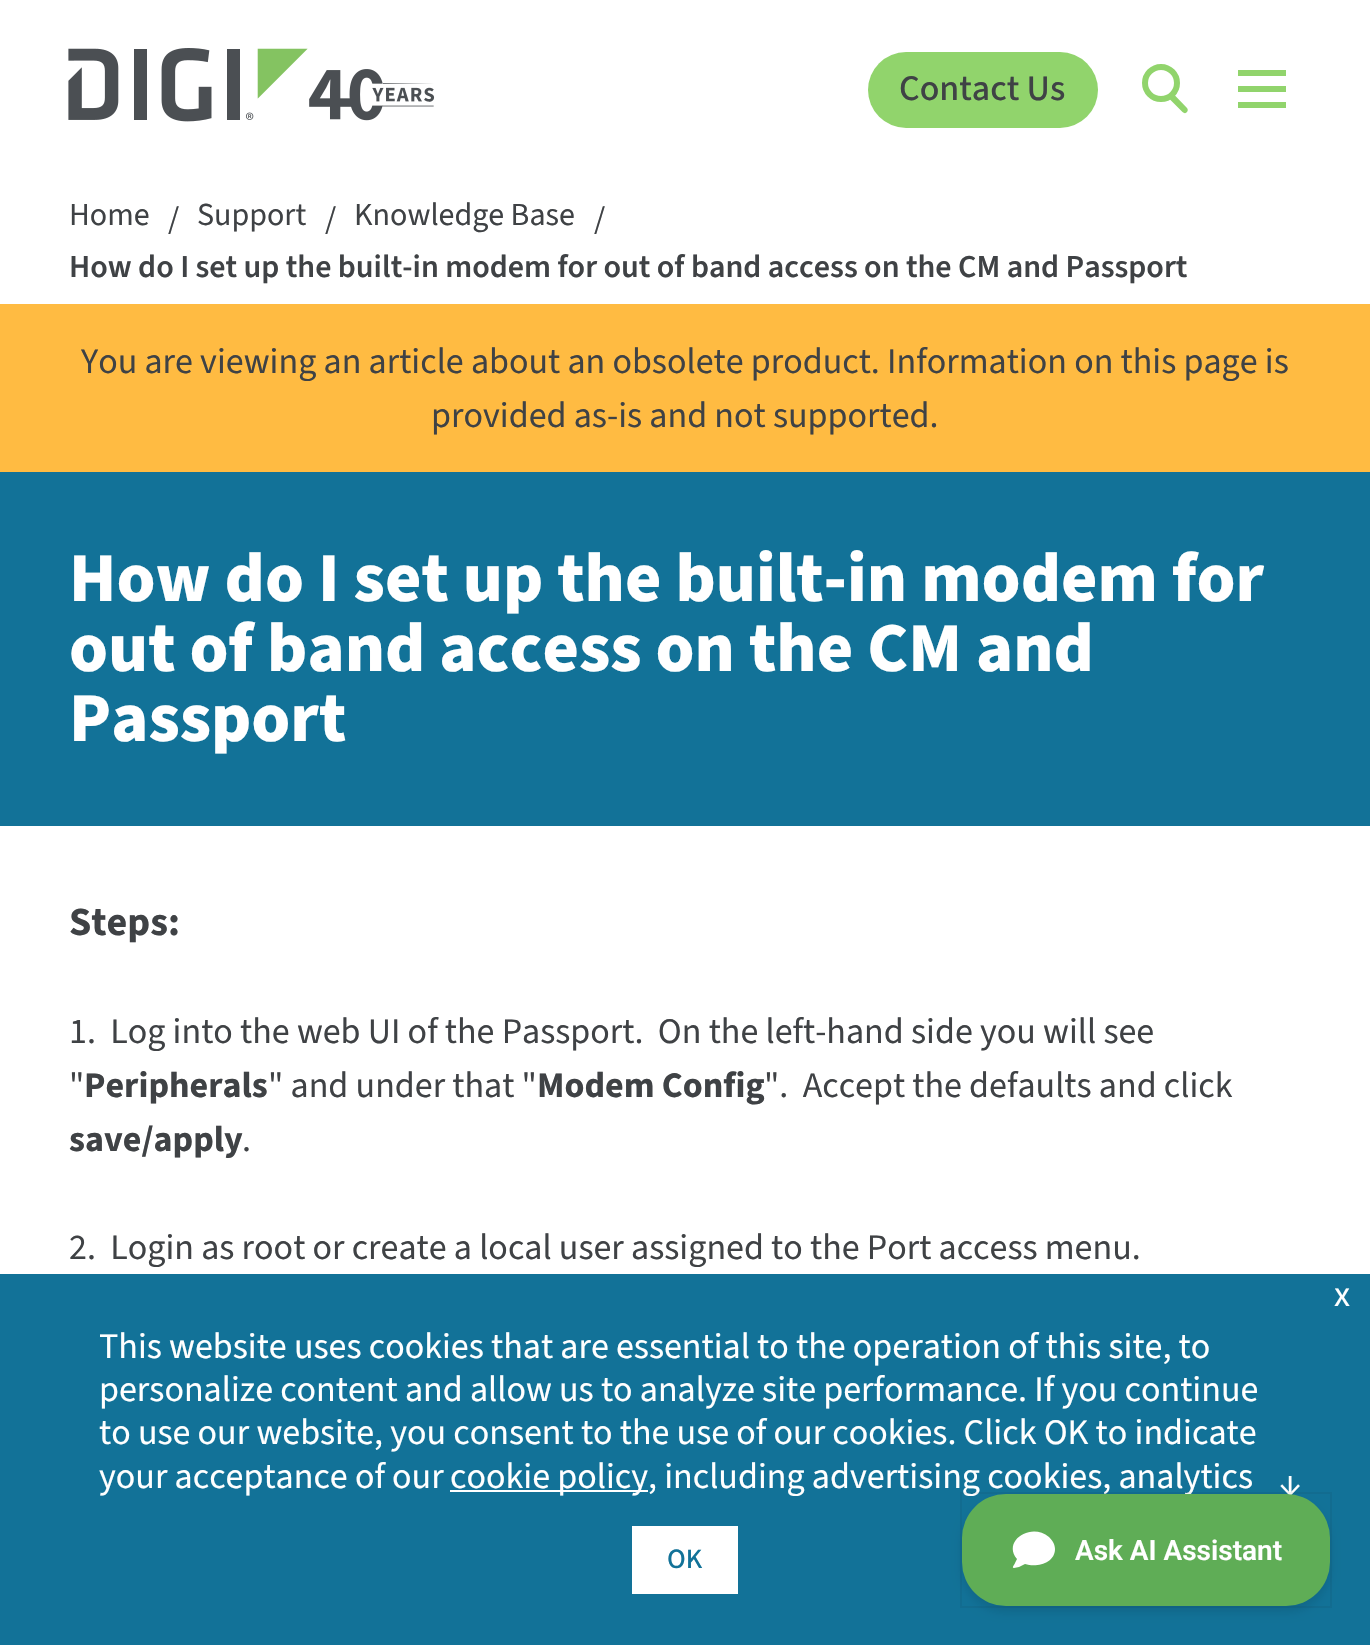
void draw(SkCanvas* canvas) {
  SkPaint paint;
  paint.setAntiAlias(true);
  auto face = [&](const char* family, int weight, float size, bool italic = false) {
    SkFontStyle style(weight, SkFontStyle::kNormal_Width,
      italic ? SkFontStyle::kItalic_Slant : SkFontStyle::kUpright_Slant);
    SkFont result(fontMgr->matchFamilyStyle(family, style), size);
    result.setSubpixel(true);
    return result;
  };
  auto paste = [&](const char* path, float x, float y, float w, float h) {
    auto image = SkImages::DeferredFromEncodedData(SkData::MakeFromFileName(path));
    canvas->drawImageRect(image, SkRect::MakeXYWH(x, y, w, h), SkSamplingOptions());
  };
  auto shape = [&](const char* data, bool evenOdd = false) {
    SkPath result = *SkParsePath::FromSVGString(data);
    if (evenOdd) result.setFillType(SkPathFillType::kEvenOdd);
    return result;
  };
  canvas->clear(0xffffffff);
  paste("img/1.png", 68, 48, 240, 74);
  paste("img/2.png", 309, 69, 126, 52);
  paint.setColor(0xff91d46c);
  canvas->drawRoundRect(SkRect::MakeXYWH(868, 52, 230, 76), 38, 38, paint);
  paint.setStroke(true);
  paint.setStrokeWidth(6);
  canvas->drawCircle(1161, 83, 16, paint);
  paint.setStroke(false);
  canvas->drawPath(shape("M1170 95C1171 94 1173 94 1174.5 95L1187 108C1188 109 1188 111 1187 112C1186 113.5 1184 113.5 1182.5 112L1170 99.5C1169 98.5 1169 96.5 1170 95Z"), paint);
  {
    const struct { float x, y, w, h; SkColor color; } items[] = {
      {1238, 70, 48, 6, 0xff91d46c},
      {1238, 86, 48, 6, 0xff91d46c},
      {1238, 102, 48, 6, 0xff91d46c},
      {0, 304, 1370, 168, 0xffffbb42},
      {0, 472, 1370, 354, 0xff127298},
      {0, 1274, 1370, 371, 0xff127298},
      {450, 1490, 198, 2, 0xffffffff},
      {632, 1526, 106, 68, 0xffffffff},
    };
    for (auto [x, y, w, h, color] : items) {
      paint.setColor(color);
      canvas->drawRect(SkRect::MakeXYWH(x, y, w, h), paint);
    }
  }
  paint.setColor(0x1a000000);
  paint.setMaskFilter(SkMaskFilter::MakeBlur(kNormal_SkBlurStyle, 5));
  canvas->drawRoundRect(SkRect::MakeXYWH(962, 1500, 368, 112), 44, 44, paint);
  paint.setMaskFilter(nullptr);
  auto f0 = face("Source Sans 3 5", 200, 36);
  paint.setColor(0xff3f4245);
  canvas->drawString("Contact Us", 899, 100, f0, paint);
  auto f1 = face("Source Sans 3", 200, 32);
  {
    const struct { const char* s; float x, y; } items[] = {
      {"Home", 69, 225},
      {"/", 168, 229},
      {"Support", 197, 225},
      {"/", 325, 229},
      {"Knowledge Base", 354, 225},
      {"/", 594, 229},
    };
    for (auto [s, x, y] : items) {
      canvas->drawString(s, x, y, f1, paint);
    }
  }
  auto f2 = face("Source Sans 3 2", 200, 32);
  canvas->drawString("How do I set up the built-in modem for out of band access on the CM and Passport", 69, 277, f2, paint);
  auto f3 = face("Source Sans 3", 200, 36);
  canvas->drawString("You are viewing an article about an obsolete product. Information on this page is", 81, 373, f3, paint);
  canvas->drawString("provided as-is and not supported.", 431, 427, f3, paint);
  auto f4 = face("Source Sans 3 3", 200, 70);
  paint.setColor(0xffffffff);
  {
    const struct { const char* s; float x, y; } items[] = {
      {"How do I set up the built-in modem for", 69, 601},
      {"out of band access on the CM and", 69, 671},
      {"Passport", 69, 741},
    };
    for (auto [s, x, y] : items) {
      canvas->drawString(s, x, y, f4, paint);
    }
  }
  auto f5 = face("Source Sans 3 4", 200, 40);
  paint.setColor(0xff3f4245);
  canvas->drawString("Steps:", 69, 935, f5, paint);
  canvas->drawString("1.  Log into the web UI of the Passport.  On the left-hand side you will see", 69, 1043, f3, paint);
  canvas->drawString("\"", 69, 1097, f3, paint);
  auto f6 = face("Source Sans 3 4", 200, 36);
  canvas->drawString("Peripherals", 84, 1097, f6, paint);
  canvas->drawString("\" and under that \"", 268, 1097, f3, paint);
  canvas->drawString("Modem Config", 537, 1097, f6, paint);
  canvas->drawString("\".  Accept the defaults and click", 764, 1097, f3, paint);
  canvas->drawString("save/apply", 69, 1151, f6, paint);
  canvas->drawString(".", 242, 1151, f3, paint);
  canvas->drawString("2.  Login as root or create a local user assigned to the Port access menu.", 69, 1259, f3, paint);
  paint.setColor(0xffffffff);
  {
    const struct { const char* s; float x, y; } items[] = {
      {"x", 1334, 1306},
      {"This website uses cookies that are essential to the operation of this site, to", 99, 1358},
      {"personalize content and allow us to analyze site performance. If you continue", 99, 1401},
      {"to use our website, you consent to the use of our cookies. Click OK to indicate", 99, 1444},
      {"your acceptance of our", 99, 1488},
      {"cookie policy, including advertising cookies, analytics", 450, 1488},
      {"↓", 1279, 1495},
    };
    for (auto [s, x, y] : items) {
      canvas->drawString(s, x, y, f3, paint);
    }
  }
  auto f7 = face("Source Sans 3 5", 200, 28);
  paint.setColor(0xff127298);
  canvas->drawString("OK", 667, 1568, f7, paint);
  paint.setStroke(true);
  paint.setStrokeWidth(2);
  paint.setColor(0x0d000000);
  canvas->drawRect(SkRect::MakeXYWH(961, 1493, 370, 114), paint);
  paint.setStroke(false);
  paint.setColor(0xff5fad56);
  canvas->drawRoundRect(SkRect::MakeXYWH(962, 1494, 368, 112), 44, 44, paint);
  paint.setColor(0xffffffff);
  canvas->drawPath(shape("M1055 1549C1055 1563 1037 1568 1025 1564L1019 1567L1014 1568C1011 1568 1015 1564 1015 1563L1017 1559C1002 1541 1031 1522 1049 1537C1052 1540 1055 1544 1055 1549Z"), paint);
  auto f8 = face("Roboto", 600, 28);
  canvas->drawString("Ask AI Assistant", 1075, 1560, f8, paint);
}
